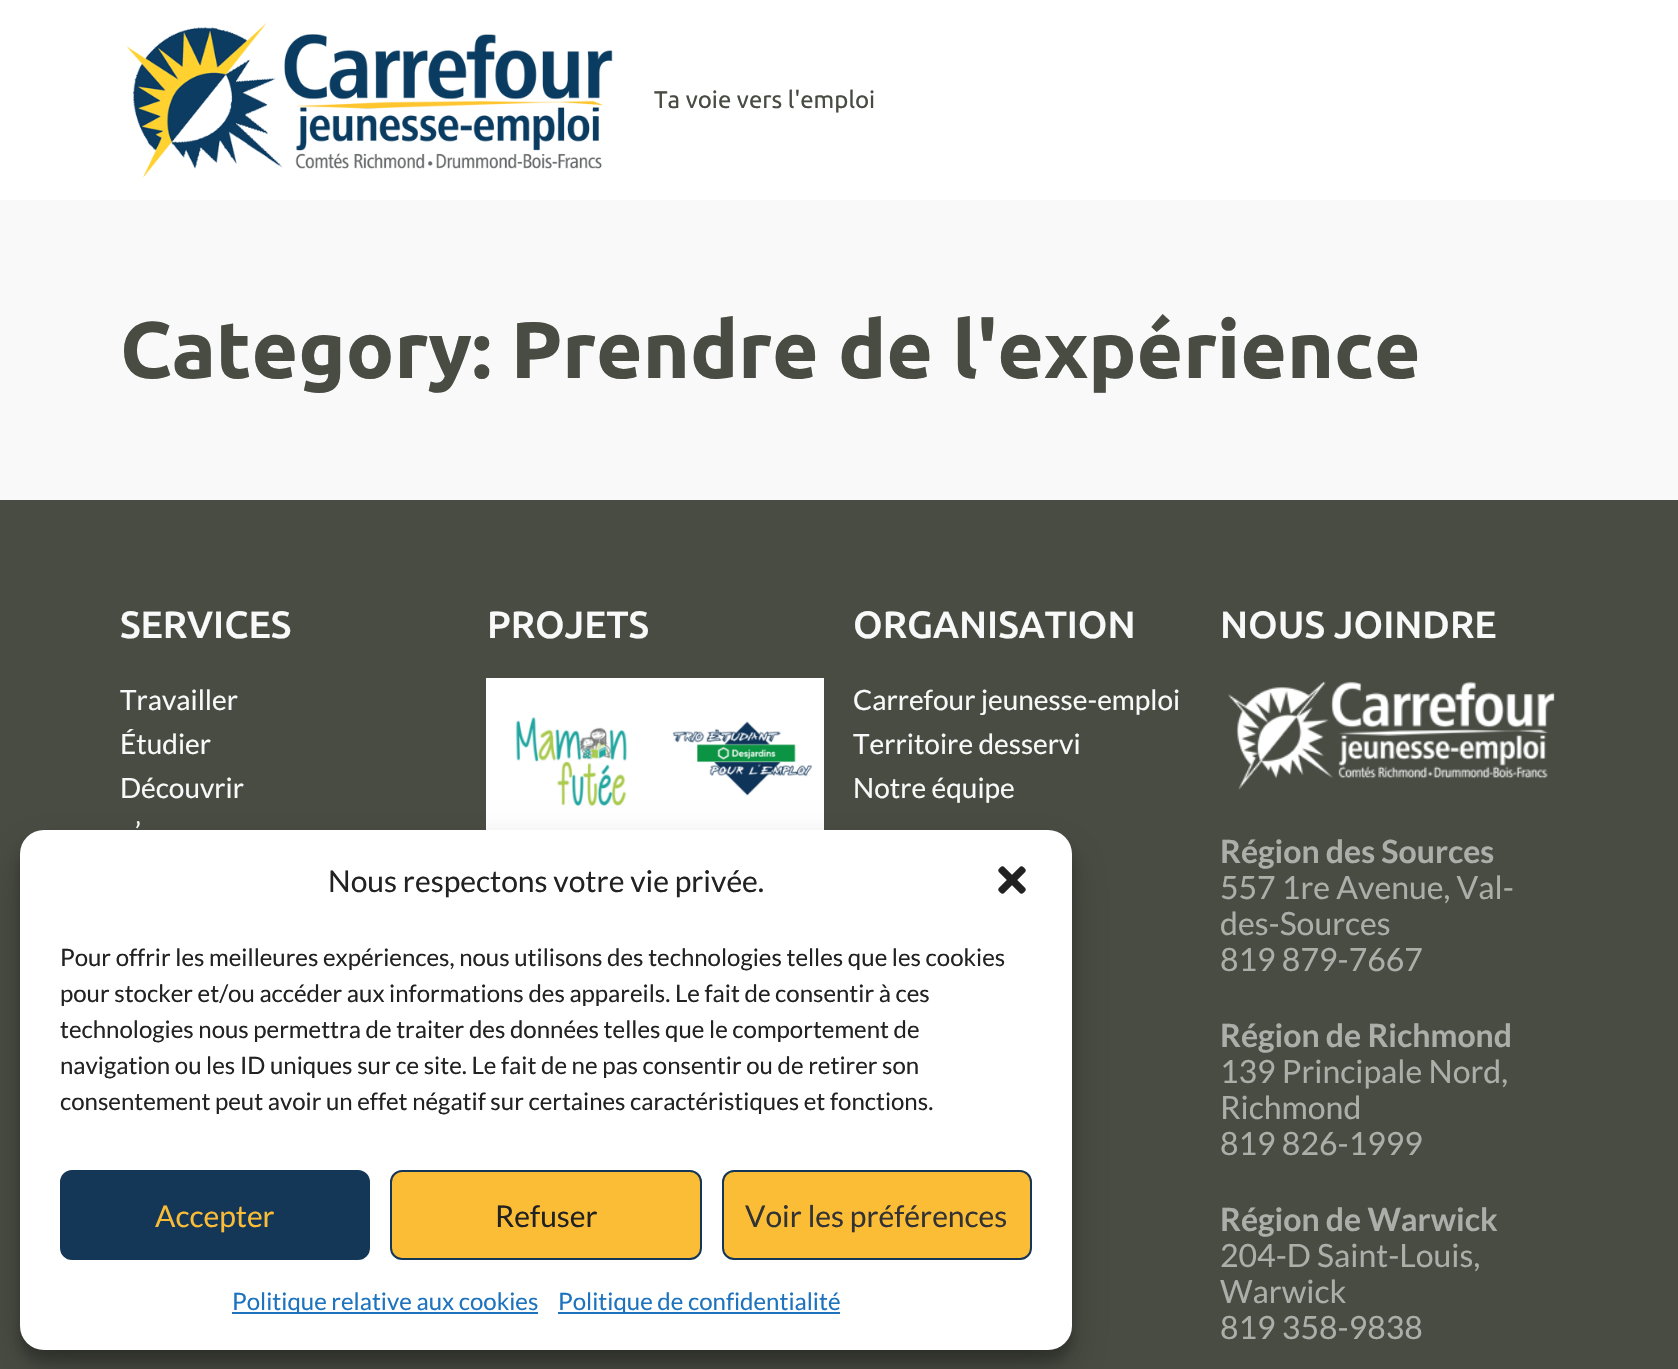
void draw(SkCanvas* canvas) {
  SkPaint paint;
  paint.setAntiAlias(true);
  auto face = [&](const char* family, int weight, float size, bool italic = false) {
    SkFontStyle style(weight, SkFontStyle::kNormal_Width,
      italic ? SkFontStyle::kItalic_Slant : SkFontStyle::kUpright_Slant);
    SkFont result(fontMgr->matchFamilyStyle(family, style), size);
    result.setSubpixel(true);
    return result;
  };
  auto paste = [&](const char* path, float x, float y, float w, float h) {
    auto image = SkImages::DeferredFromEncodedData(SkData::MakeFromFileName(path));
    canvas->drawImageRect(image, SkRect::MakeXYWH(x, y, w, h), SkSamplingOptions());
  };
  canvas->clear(0xff494c43);
  paint.setColor(0xffffffff);
  canvas->drawRect(SkRect::MakeXYWH(0, 0, 1678, 200), paint);
  paste("img/1.png", 126, 22, 487, 156);
  paint.setColor(0xfff9f9f9);
  canvas->drawRect(SkRect::MakeXYWH(0, 200, 1678, 300), paint);
  paste("img/2.png", 486, 678, 170, 152);
  paste("img/3.png", 656, 678, 168, 152);
  paste("img/4.png", 1228, 681, 327, 109);
  paint.setColor(0x3b000000);
  paint.setMaskFilter(SkMaskFilter::MakeBlur(kNormal_SkBlurStyle, 6));
  canvas->drawRoundRect(SkRect::MakeXYWH(20, 842, 1052, 520), 24, 24, paint);
  paint.setMaskFilter(nullptr);
  paint.setColor(0x30000000);
  paint.setMaskFilter(SkMaskFilter::MakeBlur(kNormal_SkBlurStyle, 20));
  canvas->drawRoundRect(SkRect::MakeXYWH(20, 850, 1052, 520), 24, 24, paint);
  paint.setMaskFilter(nullptr);
  paint.setColor(0xffffffff);
  canvas->drawRoundRect(SkRect::MakeXYWH(20, 830, 1052, 520), 24, 24, paint);
  paste("img/5.png", 998, 866, 28, 28);
  paint.setColor(0xff143757);
  canvas->drawRoundRect(SkRect::MakeXYWH(61, 1171, 308, 88), 11, 11, paint);
  paint.setStroke(true);
  paint.setStrokeWidth(2);
  canvas->drawRoundRect(SkRect::MakeXYWH(61, 1171, 308, 88), 11, 11, paint);
  paint.setStroke(false);
  paint.setColor(0xfffbbc36);
  canvas->drawRoundRect(SkRect::MakeXYWH(391, 1171, 310, 88), 11, 11, paint);
  paint.setStroke(true);
  paint.setColor(0xff143757);
  canvas->drawRoundRect(SkRect::MakeXYWH(391, 1171, 310, 88), 11, 11, paint);
  paint.setStroke(false);
  paint.setColor(0xfffbbc36);
  canvas->drawRoundRect(SkRect::MakeXYWH(723, 1171, 308, 88), 11, 11, paint);
  paint.setStroke(true);
  paint.setColor(0xff143757);
  canvas->drawRoundRect(SkRect::MakeXYWH(723, 1171, 308, 88), 11, 11, paint);
  paint.setStroke(false);
  paint.setColor(0xff1e73be);
  canvas->drawRect(SkRect::MakeXYWH(232, 1312, 306, 2), paint);
  canvas->drawRect(SkRect::MakeXYWH(558, 1312, 282, 2), paint);
  auto f0 = face("Ubuntu", 400, 24);
  paint.setColor(0xff494c43);
  canvas->drawString("Ta voie vers l'emploi", 654, 108, f0, paint);
  auto f1 = face("Ubuntu", 700, 80);
  canvas->drawString("Category: Prendre de l'expérience", 120, 378, f1, paint);
  auto f2 = face("Ubuntu", 500, 38);
  paint.setColor(0xfff9f9f9);
  canvas->drawString("SERVICES", 120, 638, f2, paint);
  auto f3 = face("Lato", 400, 28);
  {
    const struct { const char* s; float x, y; } items[] = {
      {"Travailler", 120, 710},
      {"Étudier", 120, 754},
      {"Découvrir", 120, 798},
      {"’", 135, 842},
    };
    for (auto [s, x, y] : items) {
      canvas->drawString(s, x, y, f3, paint);
    }
  }
  canvas->drawString("PROJETS", 487, 638, f2, paint);
  canvas->drawString("ORGANISATION", 853, 638, f2, paint);
  {
    const struct { const char* s; float x, y; } items[] = {
      {"Carrefour jeunesse-emploi", 853, 710},
      {"Territoire desservi", 853, 754},
      {"Notre équipe", 853, 798},
    };
    for (auto [s, x, y] : items) {
      canvas->drawString(s, x, y, f3, paint);
    }
  }
  canvas->drawString("NOUS JOINDRE", 1220, 638, f2, paint);
  auto f4 = face("Lato", 700, 32);
  paint.setColor(0xffacaea9);
  canvas->drawString("Région des Sources", 1220, 863, f4, paint);
  auto f5 = face("Lato", 400, 32);
  {
    const struct { const char* s; float x, y; } items[] = {
      {"557 1re Avenue, Val-", 1220, 899},
      {"des-Sources", 1220, 935},
      {"819 879-7667", 1220, 971},
    };
    for (auto [s, x, y] : items) {
      canvas->drawString(s, x, y, f5, paint);
    }
  }
  canvas->drawString("Région de Richmond", 1220, 1047, f4, paint);
  {
    const struct { const char* s; float x, y; } items[] = {
      {"139 Principale Nord,", 1220, 1083},
      {"Richmond", 1220, 1119},
      {"819 826-1999", 1220, 1155},
    };
    for (auto [s, x, y] : items) {
      canvas->drawString(s, x, y, f5, paint);
    }
  }
  canvas->drawString("Région de Warwick", 1220, 1231, f4, paint);
  {
    const struct { const char* s; float x, y; } items[] = {
      {"204-D Saint-Louis,", 1220, 1267},
      {"Warwick", 1220, 1303},
      {"819 358-9838", 1220, 1339},
    };
    for (auto [s, x, y] : items) {
      canvas->drawString(s, x, y, f5, paint);
    }
  }
  auto f6 = face("Lato", 400, 30);
  paint.setColor(0xff222222);
  canvas->drawString("Nous respectons votre vie privée.", 328, 892, f6, paint);
  auto f7 = face("Lato", 400, 24);
  {
    const struct { const char* s; float x, y; } items[] = {
      {"Pour offrir les meilleures expériences, nous utilisons des technologies telles que les cookies", 60, 966},
      {"pour stocker et/ou accéder aux informations des appareils. Le fait de consentir à ces", 60, 1002},
      {"technologies nous permettra de traiter des données telles que le comportement de", 60, 1038},
      {"navigation ou les ID uniques sur ce site. Le fait de ne pas consentir ou de retirer son", 60, 1074},
      {"consentement peut avoir un effet négatif sur certaines caractéristiques et fonctions.", 60, 1110},
    };
    for (auto [s, x, y] : items) {
      canvas->drawString(s, x, y, f7, paint);
    }
  }
  paint.setColor(0xfffbbc36);
  canvas->drawString("Accepter", 155, 1227, f6, paint);
  paint.setColor(0xff222222);
  canvas->drawString("Refuser", 495, 1227, f6, paint);
  paint.setColor(0xff333333);
  canvas->drawString("Voir les préférences", 745, 1227, f6, paint);
  paint.setColor(0xff1e73be);
  canvas->drawString("Politique relative aux cookies", 232, 1310, f7, paint);
  canvas->drawString("Politique de confidentialité", 558, 1310, f7, paint);
}
